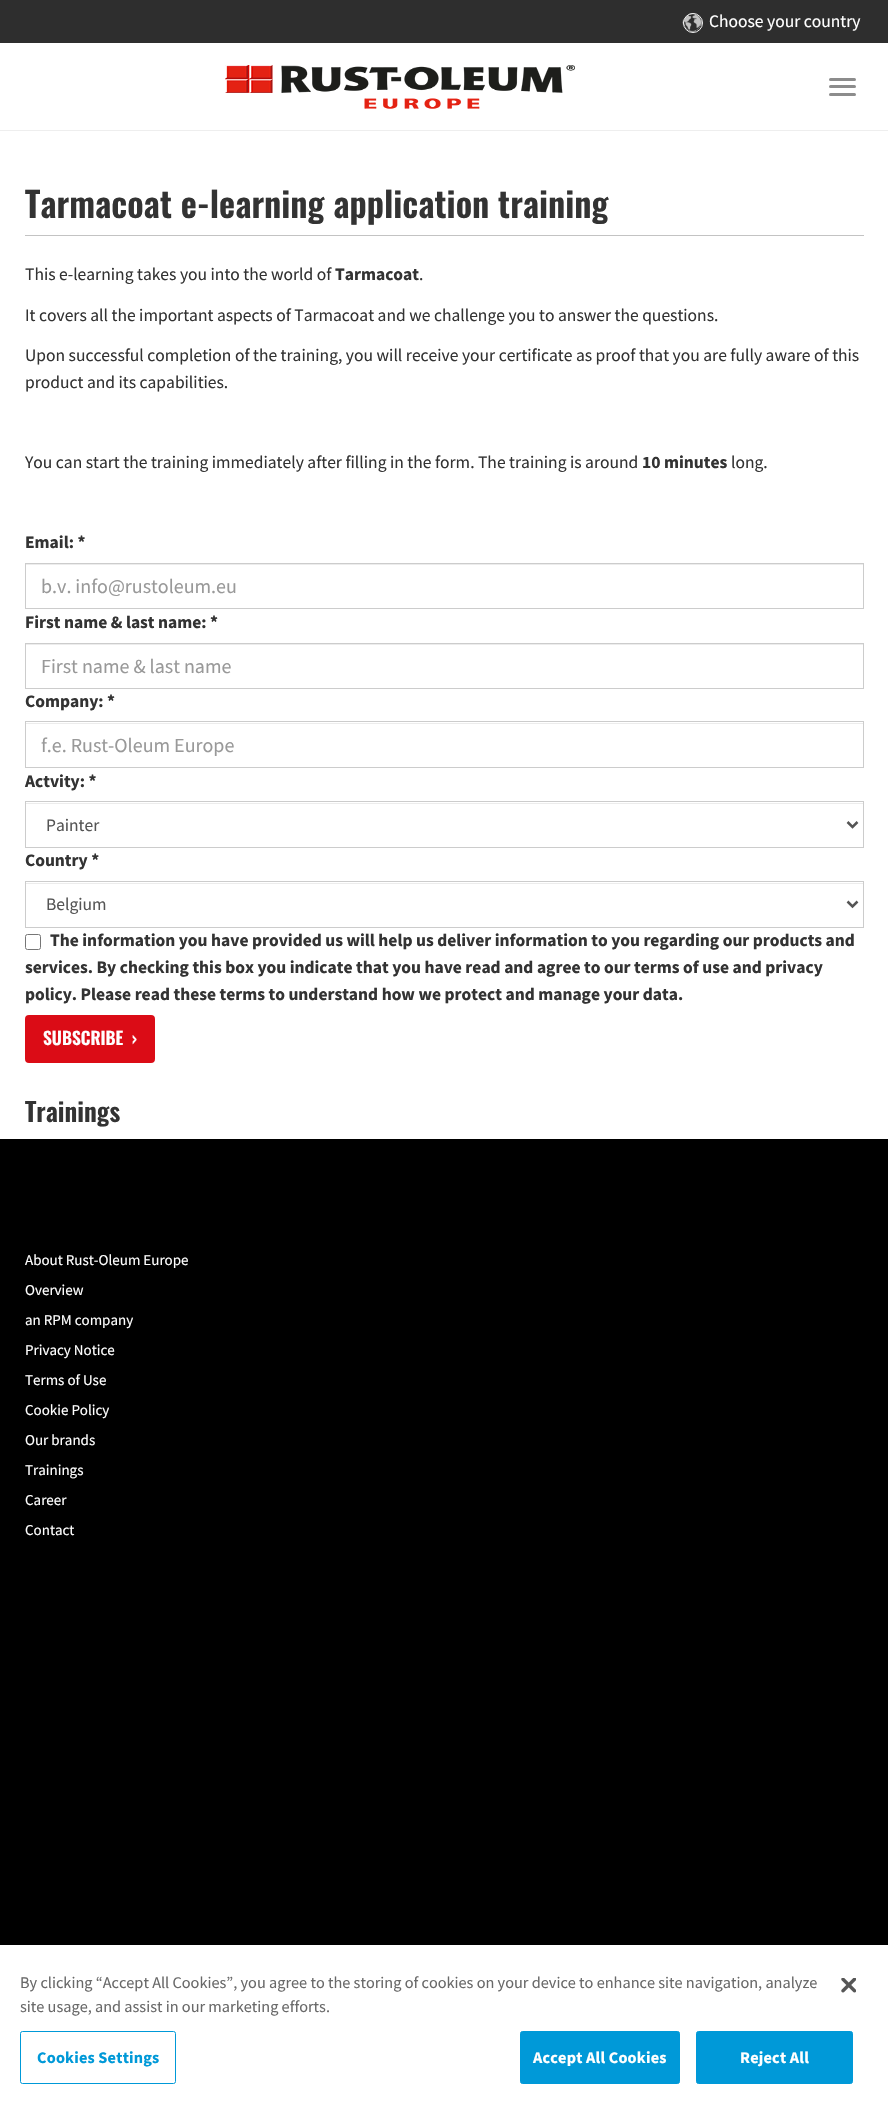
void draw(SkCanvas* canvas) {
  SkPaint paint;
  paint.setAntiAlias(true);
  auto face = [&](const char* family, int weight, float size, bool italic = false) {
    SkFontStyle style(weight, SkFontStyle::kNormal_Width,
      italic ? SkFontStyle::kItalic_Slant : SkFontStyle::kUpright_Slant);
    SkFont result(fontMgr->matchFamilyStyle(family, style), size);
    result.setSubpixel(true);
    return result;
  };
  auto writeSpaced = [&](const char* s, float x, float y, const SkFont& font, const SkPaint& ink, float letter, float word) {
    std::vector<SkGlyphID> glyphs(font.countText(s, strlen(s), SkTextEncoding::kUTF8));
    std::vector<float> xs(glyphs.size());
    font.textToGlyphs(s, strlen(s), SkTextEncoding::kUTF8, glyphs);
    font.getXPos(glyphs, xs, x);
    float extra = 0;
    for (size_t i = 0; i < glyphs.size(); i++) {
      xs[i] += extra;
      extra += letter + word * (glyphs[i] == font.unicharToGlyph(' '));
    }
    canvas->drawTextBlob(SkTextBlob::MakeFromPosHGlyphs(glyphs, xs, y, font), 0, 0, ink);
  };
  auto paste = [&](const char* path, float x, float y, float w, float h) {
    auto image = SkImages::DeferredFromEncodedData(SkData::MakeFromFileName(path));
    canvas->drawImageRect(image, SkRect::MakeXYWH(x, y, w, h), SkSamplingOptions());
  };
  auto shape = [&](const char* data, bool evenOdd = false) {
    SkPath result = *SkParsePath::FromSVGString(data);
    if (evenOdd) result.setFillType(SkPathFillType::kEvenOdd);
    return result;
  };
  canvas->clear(0xff000000);
  {
    const struct { float x, y, w, h; SkColor color; } items[] = {
      {0, 43, 888, 1096, 0xffffffff},
      {0, 130, 888, 1, 0xffeeeeee},
      {0, 0, 888, 43, 0xff2e2e2e},
    };
    for (auto [x, y, w, h, color] : items) {
      paint.setColor(color);
      canvas->drawRect(SkRect::MakeXYWH(x, y, w, h), paint);
    }
  }
  paste("img/1.png", 682, 13, 21, 19);
  paint.setStroke(true);
  paint.setStrokeWidth(1);
  paint.setColor(0xfff2f2f2);
  canvas->drawCircle(693, 23, 9.5f, paint);
  paste("img/2.png", 225, 65, 350, 44);
  paint.setStroke(false);
  paint.setColor(0xff8c8c8c);
  canvas->drawRoundRect(SkRect::MakeXYWH(829, 78, 27, 3), 1.5f, 1.5f, paint);
  canvas->drawRoundRect(SkRect::MakeXYWH(829, 85, 27, 3), 1.5f, 1.5f, paint);
  canvas->drawRoundRect(SkRect::MakeXYWH(829, 93, 27, 3), 1.5f, 1.5f, paint);
  paint.setColor(0xffc3c3c3);
  canvas->drawRect(SkRect::MakeXYWH(25, 235, 839, 1), paint);
  paint.setColor(0xffececec);
  canvas->drawRect(SkRect::MakeXYWH(26, 564, 837, 1), paint);
  paint.setStroke(true);
  paint.setColor(0xffcccccc);
  canvas->drawRect(SkRect::MakeXYWH(25.5f, 563.5f, 838, 45), paint);
  paint.setStroke(false);
  paint.setColor(0xffececec);
  canvas->drawRect(SkRect::MakeXYWH(26, 644, 837, 1), paint);
  paint.setStroke(true);
  paint.setColor(0xffcccccc);
  canvas->drawRect(SkRect::MakeXYWH(25.5f, 643.5f, 838, 45), paint);
  paint.setStroke(false);
  paint.setColor(0xffececec);
  canvas->drawRect(SkRect::MakeXYWH(26, 723, 837, 1), paint);
  paint.setStroke(true);
  paint.setColor(0xffcccccc);
  canvas->drawRect(SkRect::MakeXYWH(25.5f, 721.5f, 838, 46), paint);
  paint.setStroke(false);
  paint.setColor(0xffececec);
  canvas->drawRect(SkRect::MakeXYWH(26, 803, 837, 1), paint);
  paint.setStroke(true);
  paint.setColor(0xffcccccc);
  canvas->drawRect(SkRect::MakeXYWH(25.5f, 801.5f, 838, 46), paint);
  paint.setStrokeWidth(2.5f);
  paint.setColor(0xff555555);
  canvas->drawPath(shape("M847.5 822L852.5 827L857.5 822"), paint);
  paint.setStroke(false);
  paint.setColor(0xffececec);
  canvas->drawRect(SkRect::MakeXYWH(26, 883, 837, 1), paint);
  paint.setStroke(true);
  paint.setStrokeWidth(1);
  paint.setColor(0xffcccccc);
  canvas->drawRect(SkRect::MakeXYWH(25.5f, 881.5f, 838, 46), paint);
  paint.setStrokeWidth(2.5f);
  paint.setColor(0xff555555);
  canvas->drawPath(shape("M847.5 901.5L852.5 906.5L857.5 901.5"), paint);
  paint.setStrokeWidth(1);
  paint.setColor(0xff767676);
  canvas->drawRoundRect(SkRect::MakeXYWH(25.5f, 934.5f, 15, 15), 2, 2, paint);
  paint.setStroke(false);
  paint.setColor(0xffdb0c16);
  canvas->drawRoundRect(SkRect::MakeXYWH(26.5f, 1016.5f, 127, 45), 2.5f, 2.5f, paint);
  paint.setStroke(true);
  paint.setStrokeWidth(3);
  canvas->drawRoundRect(SkRect::MakeXYWH(26.5f, 1016.5f, 127, 45), 2.5f, 2.5f, paint);
  paint.setStroke(false);
  paint.setColor(0xffffffff);
  canvas->drawRect(SkRect::MakeXYWH(0, 1945, 888, 156), paint);
  paint.setStroke(true);
  paint.setStrokeWidth(1);
  paint.setColor(0xff0099d8);
  canvas->drawRoundRect(SkRect::MakeXYWH(20.5f, 2031.5f, 155, 52), 2, 2, paint);
  paint.setStroke(false);
  canvas->drawRoundRect(SkRect::MakeXYWH(520.5f, 2031.5f, 159, 52), 2, 2, paint);
  paint.setStroke(true);
  canvas->drawRoundRect(SkRect::MakeXYWH(520.5f, 2031.5f, 159, 52), 2, 2, paint);
  paint.setStroke(false);
  canvas->drawRoundRect(SkRect::MakeXYWH(696.5f, 2031.5f, 156, 52), 2, 2, paint);
  paint.setStroke(true);
  canvas->drawRoundRect(SkRect::MakeXYWH(696.5f, 2031.5f, 156, 52), 2, 2, paint);
  paste("img/3.png", 841, 1978, 15, 15);
  auto f0 = face("Source Sans Pro", 400, 17.5f);
  paint.setStroke(false);
  paint.setColor(0xffffffff);
  canvas->drawString("Choose your country", 709, 27, f0, paint);
  auto f1 = face("Oswald", 600, 35);
  paint.setColor(0xff333333);
  canvas->drawString("Tarmacoat e-learning application training", 25, 218, f1, paint);
  canvas->drawString("This e-learning takes you into the world of", 25, 280, f0, paint);
  auto f2 = face("Source Sans Pro", 700, 17.5f);
  canvas->drawString("Tarmacoat", 335, 280, f2, paint);
  {
    const struct { const char* s; float x, y; } items[] = {
      {".", 419, 280},
      {"It covers all the important aspects of Tarmacoat and we challenge you to answer the questions.", 25, 321},
      {"Upon successful completion of the training, you will receive your certificate as proof that you are fully aware of this", 25, 361},
      {"product and its capabilities.", 25, 388},
      {"You can start the training immediately after filling in the form. The training is around", 25, 468},
    };
    for (auto [s, x, y] : items) {
      canvas->drawString(s, x, y, f0, paint);
    }
  }
  canvas->drawString("10 minutes", 642, 468, f2, paint);
  canvas->drawString("long.", 731, 468, f0, paint);
  canvas->drawString("Email: *", 25, 548, f2, paint);
  auto f3 = face("Source Sans Pro", 400, 20);
  paint.setColor(0xff999999);
  canvas->drawString("b.v. info@rustoleum.eu", 41, 593, f3, paint);
  paint.setColor(0xff333333);
  canvas->drawString("First name & last name: *", 25, 628, f2, paint);
  paint.setColor(0xff999999);
  canvas->drawString("First name & last name", 41, 673, f3, paint);
  paint.setColor(0xff333333);
  canvas->drawString("Company: *", 25, 707, f2, paint);
  paint.setColor(0xff999999);
  canvas->drawString("f.e. Rust-Oleum Europe", 41, 752, f3, paint);
  paint.setColor(0xff333333);
  canvas->drawString("Actvity: *", 25, 787, f2, paint);
  paint.setColor(0xff555555);
  canvas->drawString("Painter", 46, 831, f0, paint);
  paint.setColor(0xff333333);
  canvas->drawString("Country *", 25, 866, f2, paint);
  paint.setColor(0xff555555);
  canvas->drawString("Belgium", 46, 910, f0, paint);
  paint.setColor(0xff333333);
  {
    const struct { const char* s; float x, y; } items[] = {
      {"The information you have provided us will help us deliver information to you regarding our products and", 50, 946},
      {"services. By checking this box you indicate that you have read and agree to our terms of use and privacy", 25, 973},
      {"policy. Please read these terms to understand how we protect and manage your data.", 25, 1000},
    };
    for (auto [s, x, y] : items) {
      canvas->drawString(s, x, y, f2, paint);
    }
  }
  auto f4 = face("Oswald", 600, 17.5f);
  paint.setColor(0xffffffff);
  canvas->drawString("SUBSCRIBE", 43, 1045, f4, paint);
  canvas->drawString("›", 132, 1045, f4, paint);
  auto f5 = face("Oswald", 600, 26);
  paint.setColor(0xff333333);
  canvas->drawString("Trainings", 25, 1122, f5, paint);
  auto f6 = face("Source Sans Pro", 400, 15);
  paint.setColor(0xffffffff);
  {
    const struct { const char* s; float x, y; } items[] = {
      {"About Rust-Oleum Europe", 25, 1265},
      {"Overview", 25, 1295},
      {"an RPM company", 25, 1325},
      {"Privacy Notice", 25, 1355},
      {"Terms of Use", 25, 1385},
      {"Cookie Policy", 25, 1415},
      {"Our brands", 25, 1445},
      {"Trainings", 25, 1475},
      {"Career", 25, 1505},
      {"Contact", 25, 1535},
    };
    for (auto [s, x, y] : items) {
      canvas->drawString(s, x, y, f6, paint);
    }
  }
  auto f7 = face("Source Sans Pro", 400, 16.25f);
  paint.setColor(0xff696969);
  canvas->drawString("By clicking “Accept All Cookies”, you agree to the storing of cookies on your device to enhance site navigation, analyze", 20, 1988, f7, paint);
  canvas->drawString("site usage, and assist in our marketing efforts.", 20, 2012, f7, paint);
  auto f8 = face("Source Sans Pro", 700, 16.25f);
  paint.setColor(0xff0099d8);
  writeSpaced("Cookies Settings", 37, 2063, f8, paint, 0.2f, 0);
  paint.setColor(0xffffffff);
  writeSpaced("Accept All Cookies", 533, 2063, f8, paint, 0.2f, 0);
  writeSpaced("Reject All", 740, 2063, f8, paint, 0.2f, 0);
}
